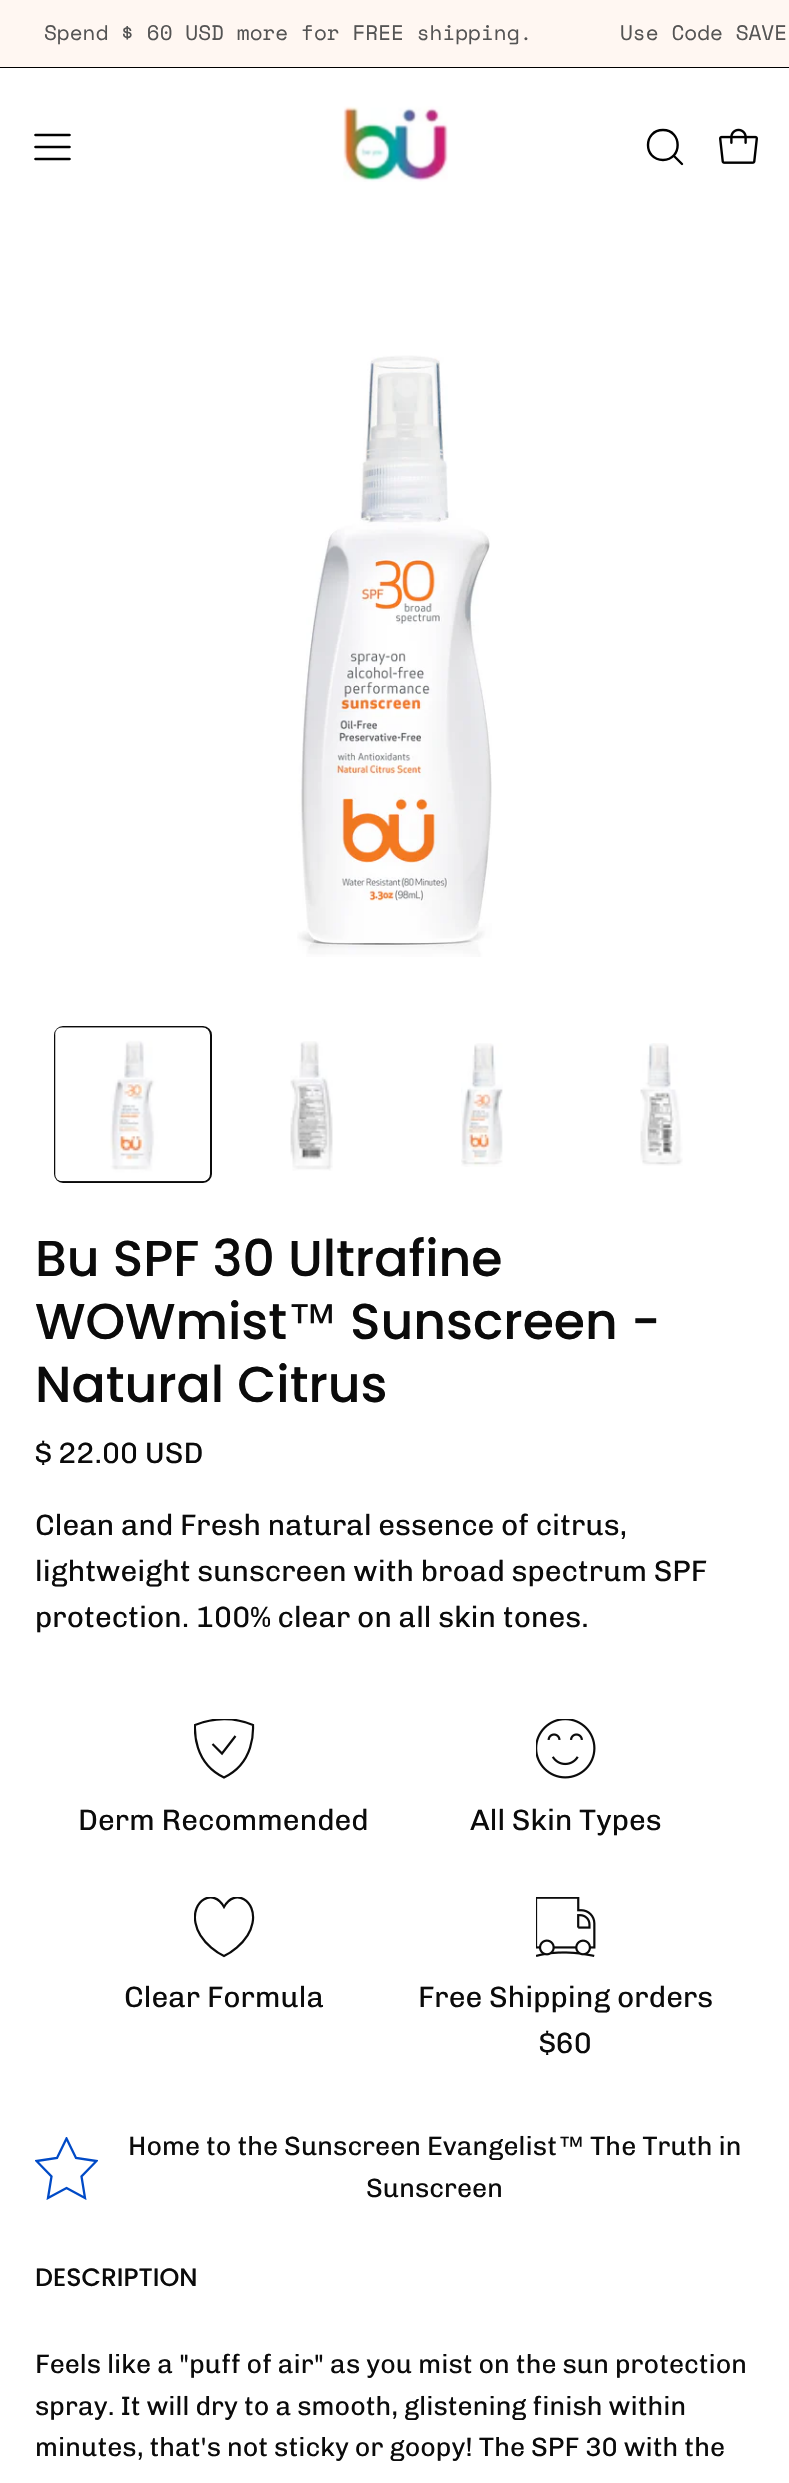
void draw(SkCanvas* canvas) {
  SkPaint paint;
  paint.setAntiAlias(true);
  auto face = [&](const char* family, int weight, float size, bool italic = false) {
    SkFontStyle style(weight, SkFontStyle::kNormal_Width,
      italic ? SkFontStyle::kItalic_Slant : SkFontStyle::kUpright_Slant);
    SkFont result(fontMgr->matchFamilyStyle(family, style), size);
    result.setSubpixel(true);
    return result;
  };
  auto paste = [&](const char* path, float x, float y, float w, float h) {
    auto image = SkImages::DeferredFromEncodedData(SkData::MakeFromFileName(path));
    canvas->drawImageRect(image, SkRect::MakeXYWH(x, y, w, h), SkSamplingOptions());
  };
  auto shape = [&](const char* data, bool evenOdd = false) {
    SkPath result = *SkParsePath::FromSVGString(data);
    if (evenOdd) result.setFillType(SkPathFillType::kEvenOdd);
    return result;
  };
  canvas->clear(0xffffffff);
  paint.setColor(0xfffff7f2);
  canvas->drawRect(SkRect::MakeXYWH(0, 0, 789, 67), paint);
  paint.setColor(0xff000000);
  canvas->drawRect(SkRect::MakeXYWH(0, 67, 789, 1), paint);
  paint.setStroke(true);
  paint.setStrokeWidth(2.6f);
  paint.setStrokeCap(SkPaint::kRound_Cap);
  paint.setStrokeJoin(SkPaint::kRound_Join);
  canvas->drawPath(shape("M35.5 147H69.5M35.5 135H69.5M35.5 159H69.5"), paint);
  paste("img/1.png", 343, 106, 105, 76);
  paint.setStrokeWidth(2.4f);
  canvas->drawPath(shape("M663 160C682.5 160 682.5 130 663 130C643 130 643 160 663 160ZM673.5 155.5L682 164"), paint);
  paste("img/2.png", 719, 128, 39, 36);
  paste("img/3.png", 297, 355, 195, 602);
  paint.setStrokeWidth(2);
  paint.setStrokeCap(SkPaint::kButt_Cap);
  paint.setStrokeJoin(SkPaint::kMiter_Join);
  paint.setColor(0xff0b0b0b);
  canvas->drawRoundRect(SkRect::MakeXYWH(55, 1027, 156, 155), 8, 8, paint);
  paste("img/4.png", 55, 1027, 154, 155);
  paste("img/5.png", 290, 1041, 43, 130);
  paste("img/6.png", 461, 1043, 42, 124);
  paste("img/7.png", 640, 1043, 43, 123);
  canvas->save();
  canvas->clipRect(SkRect::MakeXYWH(194, 1719, 62, 61));
  paint.setStrokeWidth(2.2f);
  canvas->drawPath(shape("M253 1725C253 1727 256 1762.5 224 1777.5C192 1762.5 195 1727 195 1725C213.5 1717.5 234.5 1717 253 1725Z"), paint);
  canvas->restore();
  canvas->drawPath(shape("M235.5 1736L222 1753.5L212.5 1744"), paint);
  paste("img/8.png", 536, 1719, 60, 60);
  canvas->save();
  canvas->clipRect(SkRect::MakeXYWH(194, 1897, 62, 61));
  canvas->drawPath(shape("M224 1907C213.5 1887.5 191 1900.5 195.5 1923C199.5 1944.5 224 1956 224 1956C224 1956 248.5 1944.5 252.5 1923C257 1900.5 234.5 1887.5 224 1907Z"), paint);
  canvas->restore();
  paste("img/9.png", 536, 1897, 60, 60);
  canvas->save();
  canvas->clipRect(SkRect::MakeXYWH(35, 2137, 63, 63));
  paint.setStrokeWidth(2.3f);
  paint.setColor(0xff004ac7);
  canvas->drawPath(shape("M66.5 2188L85 2198L81.5 2176.5L96.5 2161L76 2158L66.5 2138.5L57 2158L36.5 2161L51.5 2176.5L48 2198Z"), paint);
  canvas->restore();
  auto f0 = face("Space Mono", 400, 21);
  paint.setStroke(false);
  paint.setColor(0xff545454);
  canvas->drawString("Spend $ 60 USD more for FREE shipping.", 44, 40, f0, paint);
  canvas->drawString("Use Code SAVE", 620, 40, f0, paint);
  auto f1 = face("Poppins", 500, 50.5f);
  paint.setColor(0xff0b0b0b);
  canvas->drawString("Bu SPF 30 Ultrafine", 35, 1276, f1, paint);
  canvas->drawString("WOWmist", 35, 1339, f1, paint);
  auto f2 = face("Liberation Sans", 400, 50.5f);
  canvas->drawString("™", 287, 1339, f2, paint);
  canvas->drawString("Sunscreen -", 350, 1339, f1, paint);
  canvas->drawString("Natural Citrus", 35, 1402, f1, paint);
  auto f3 = face("Chivo", 400, 29.4f);
  {
    const struct { const char* s; float x, y; } items[] = {
      {"$ 22.00 USD", 35, 1463},
      {"Clean and Fresh natural essence of citrus,", 35, 1535},
      {"lightweight sunscreen with broad spectrum SPF", 35, 1581},
      {"protection. 100% clear on all skin tones.", 35, 1627},
      {"Derm Recommended", 78, 1830},
      {"All Skin Types", 470, 1830},
      {"Clear Formula", 124, 2007},
      {"Free Shipping orders", 418, 2007},
      {"$60", 539, 2053},
    };
    for (auto [s, x, y] : items) {
      canvas->drawString(s, x, y, f3, paint);
    }
  }
  auto f4 = face("Chivo", 400, 26.45f);
  canvas->drawString("Home to the Sunscreen Evangelist", 128, 2155, f4, paint);
  auto f5 = face("Liberation Sans", 400, 26.45f);
  canvas->drawString("™", 558, 2155, f5, paint);
  canvas->drawString("The Truth in", 590, 2155, f4, paint);
  canvas->drawString("Sunscreen", 366, 2197, f4, paint);
  auto f6 = face("Poppins", 500, 25.25f);
  canvas->drawString("DESCRIPTION", 35, 2286, f6, paint);
  {
    const struct { const char* s; float x, y; } items[] = {
      {"Feels like a \"puff of air\" as you mist on the sun protection", 35, 2373},
      {"spray. It will dry to a smooth, glistening finish within", 35, 2415},
      {"minutes, that's not sticky or goopy! The SPF 30 with the", 35, 2456},
    };
    for (auto [s, x, y] : items) {
      canvas->drawString(s, x, y, f4, paint);
    }
  }
}
